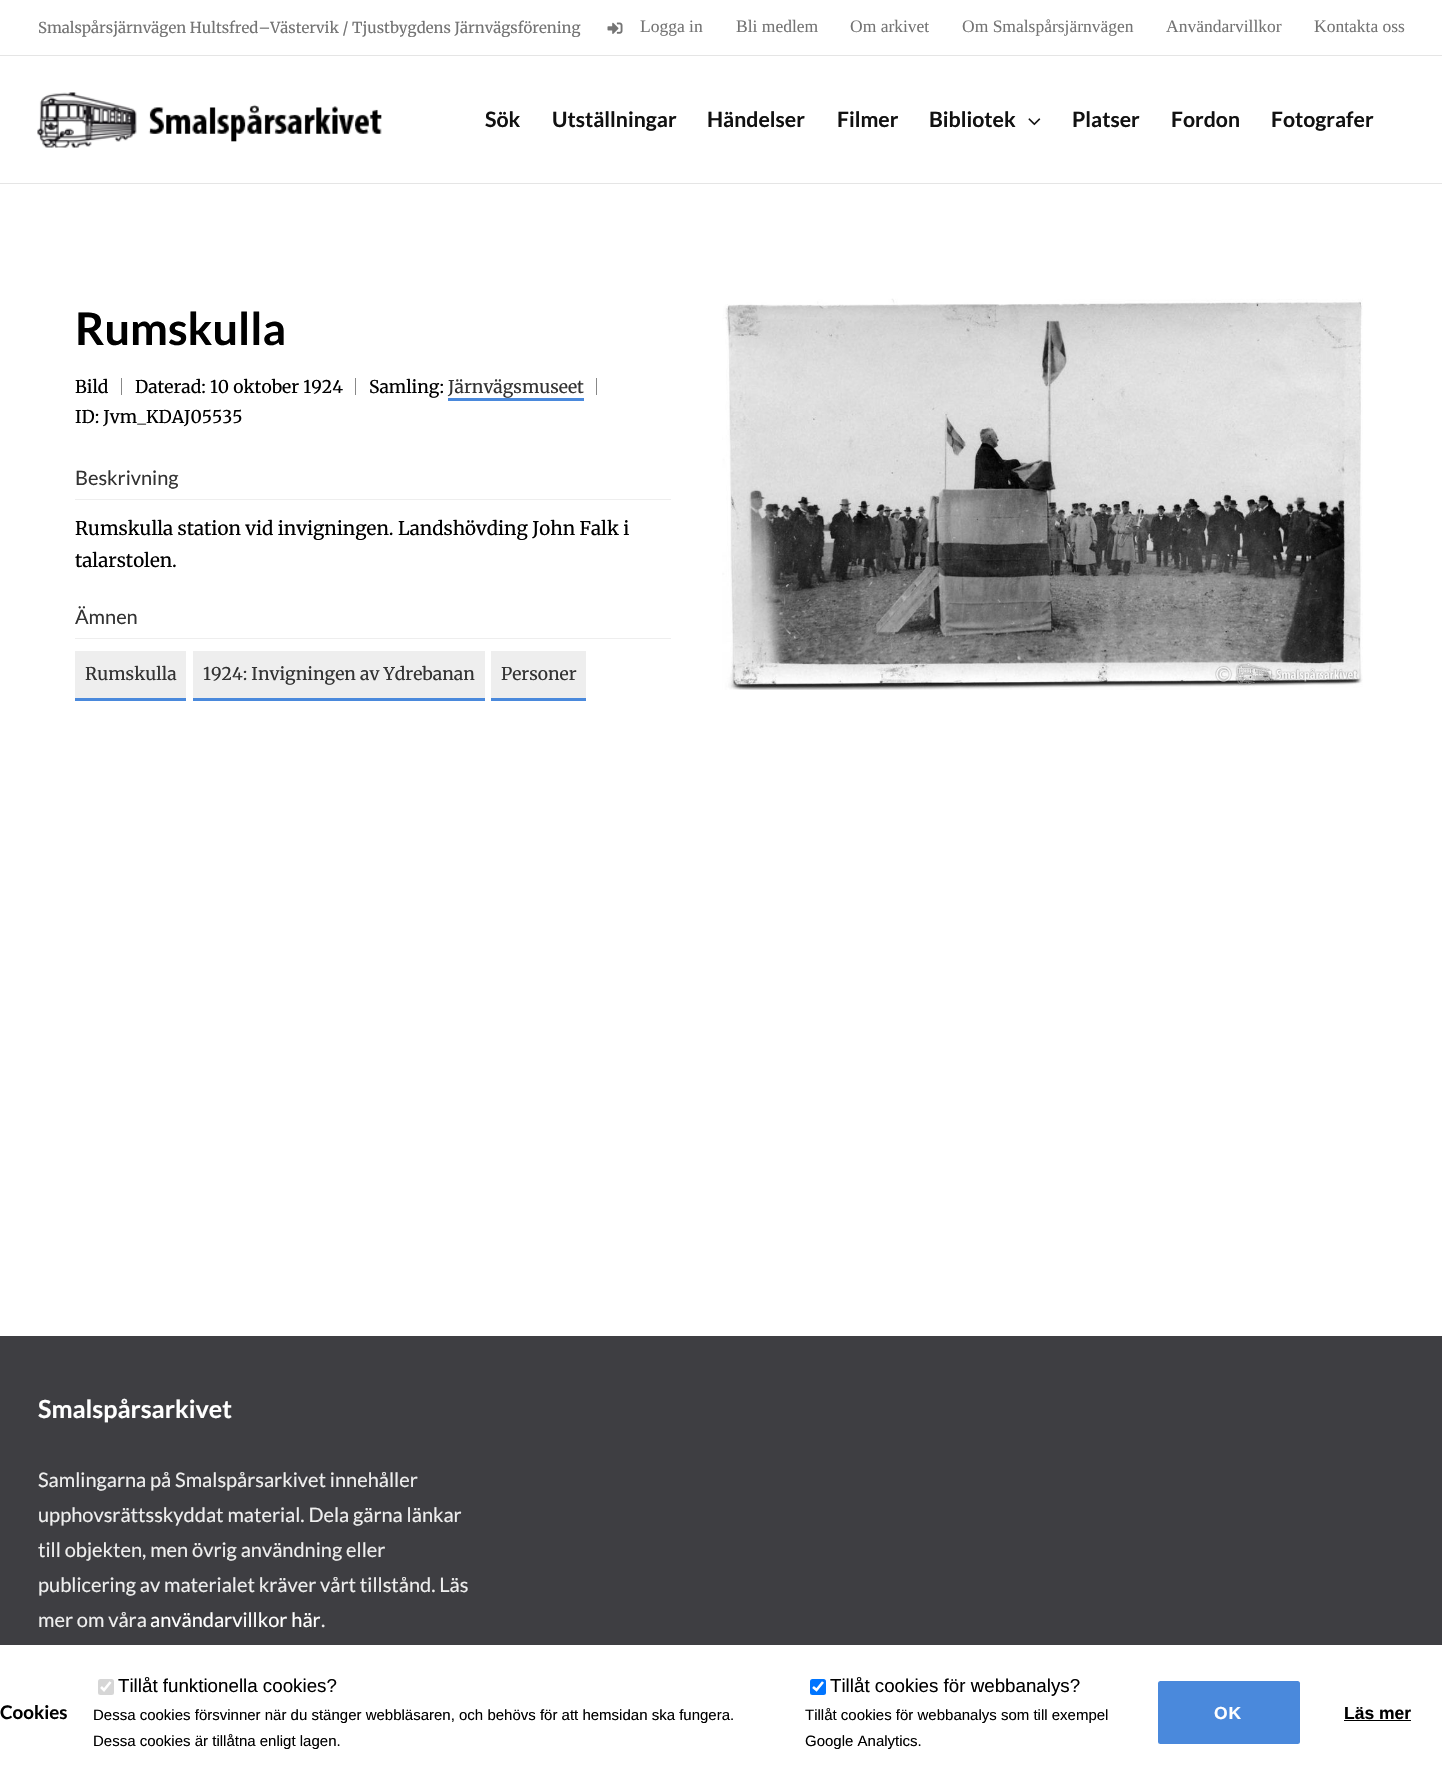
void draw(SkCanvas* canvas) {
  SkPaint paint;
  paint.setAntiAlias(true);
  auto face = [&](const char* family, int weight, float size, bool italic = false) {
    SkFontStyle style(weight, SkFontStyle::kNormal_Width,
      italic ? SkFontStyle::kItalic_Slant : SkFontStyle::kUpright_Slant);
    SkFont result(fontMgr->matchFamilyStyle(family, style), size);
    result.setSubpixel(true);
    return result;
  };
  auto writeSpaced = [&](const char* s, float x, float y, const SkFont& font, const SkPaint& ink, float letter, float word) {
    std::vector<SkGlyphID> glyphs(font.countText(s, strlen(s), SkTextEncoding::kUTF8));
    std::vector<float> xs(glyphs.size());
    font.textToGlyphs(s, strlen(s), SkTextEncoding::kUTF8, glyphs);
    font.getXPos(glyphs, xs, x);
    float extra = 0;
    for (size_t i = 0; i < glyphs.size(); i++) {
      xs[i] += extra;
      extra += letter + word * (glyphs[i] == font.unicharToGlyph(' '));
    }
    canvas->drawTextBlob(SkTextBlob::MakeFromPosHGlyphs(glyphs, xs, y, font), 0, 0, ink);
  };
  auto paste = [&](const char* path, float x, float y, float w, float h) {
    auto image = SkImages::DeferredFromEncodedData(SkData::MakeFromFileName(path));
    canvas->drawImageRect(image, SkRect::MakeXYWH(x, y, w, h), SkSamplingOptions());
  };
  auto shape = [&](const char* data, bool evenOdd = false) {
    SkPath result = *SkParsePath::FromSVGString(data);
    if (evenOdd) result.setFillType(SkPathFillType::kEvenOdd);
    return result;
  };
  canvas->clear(0xffffffff);
  paint.setColor(0xffe5e5e5);
  canvas->drawRect(SkRect::MakeXYWH(0, 55, 1442, 1), paint);
  paste("img/1.png", 607, 22, 16, 12);
  canvas->drawRect(SkRect::MakeXYWH(0, 183, 1442, 1), paint);
  paste("img/2.png", 37, 92, 345, 56);
  paste("img/3.png", 1028, 118, 13, 8);
  {
    const struct { float x, y, w, h; SkColor color; } items[] = {
      {121, 378, 1, 17, 0xff888888},
      {355, 378, 1, 17, 0xff888888},
      {596, 378, 1, 17, 0xff888888},
      {448, 398, 136, 3, 0xff4a89dc},
      {75, 499, 596, 1, 0xffeeeeee},
      {75, 638, 596, 1, 0xffeeeeee},
      {75, 651, 111, 47, 0xffeeeeee},
      {75, 698, 111, 3, 0xff4a89dc},
      {193, 651, 292, 47, 0xffeeeeee},
      {193, 698, 292, 3, 0xff4a89dc},
      {491, 651, 95, 47, 0xffeeeeee},
      {491, 698, 95, 3, 0xff4a89dc},
    };
    for (auto [x, y, w, h, color] : items) {
      paint.setColor(color);
      canvas->drawRect(SkRect::MakeXYWH(x, y, w, h), paint);
    }
  }
  paste("img/4.png", 722, 298, 641, 392);
  paint.setColor(0xff3e3e42);
  canvas->drawRect(SkRect::MakeXYWH(0, 1336, 1442, 309), paint);
  paint.setColor(0xffd6d6d6);
  canvas->drawRoundRect(SkRect::MakeXYWH(98, 1679, 16, 16), 2.5f, 2.5f, paint);
  paint.setStroke(true);
  paint.setStrokeWidth(2.6f);
  paint.setColor(0xffffffff);
  canvas->drawPath(shape("M101 1687L104 1690L110.5 1682"), paint);
  paint.setStroke(false);
  paint.setColor(0xff0075ff);
  canvas->drawRoundRect(SkRect::MakeXYWH(810, 1679, 16, 16), 2.5f, 2.5f, paint);
  paint.setStroke(true);
  paint.setColor(0xffffffff);
  canvas->drawPath(shape("M813 1687L816.5 1690L823 1682"), paint);
  paint.setStroke(false);
  paint.setColor(0xff4a89dc);
  canvas->drawRoundRect(SkRect::MakeXYWH(1158, 1681, 142, 63), 2.5f, 2.5f, paint);
  paint.setColor(0xff000000);
  canvas->drawRect(SkRect::MakeXYWH(1344, 1720, 67, 1), paint);
  auto f0 = face("Merriweather", 400, 15);
  paint.setColor(0xff747474);
  canvas->drawString("Smalspårsjärnvägen Hultsfred–Västervik / Tjustbygdens Järnvägsförening", 38, 33, f0, paint);
  auto f1 = face("Liberation Serif", 400, 17.5f);
  {
    const struct { const char* s; float x, y; } items[] = {
      {"Logga in", 640, 32},
      {"Bli medlem", 736, 32},
      {"Om arkivet", 850, 32},
      {"Om Smalspårsjärnvägen", 962, 32},
      {"Användarvillkor", 1166, 32},
      {"Kontakta oss", 1314, 32},
    };
    for (auto [s, x, y] : items) {
      canvas->drawString(s, x, y, f1, paint);
    }
  }
  auto f2 = face("Lato", 700, 21.25f);
  paint.setColor(0xff111111);
  {
    const struct { const char* s; float x, y; } items[] = {
      {"Sök", 485, 127},
      {"Utställningar", 552, 127},
      {"Händelser", 707, 127},
      {"Filmer", 837, 127},
      {"Bibliotek", 929, 127},
      {"Platser", 1072, 127},
      {"Fordon", 1171, 127},
      {"Fotografer", 1271, 127},
    };
    for (auto [s, x, y] : items) {
      canvas->drawString(s, x, y, f2, paint);
    }
  }
  auto f3 = face("Lato", 700, 45);
  paint.setColor(0xff000000);
  canvas->drawString("Rumskulla", 75, 345, f3, paint);
  auto f4 = face("Merriweather", 400, 17.5f);
  {
    const struct { const char* s; float x, y; } items[] = {
      {"Bild", 75, 393},
      {"Daterad: 10 oktober 1924", 135, 393},
      {"Samling:", 369, 393},
    };
    for (auto [s, x, y] : items) {
      canvas->drawString(s, x, y, f4, paint);
    }
  }
  paint.setColor(0xff333333);
  canvas->drawString("Järnvägsmuseet", 448, 393, f4, paint);
  paint.setColor(0xff000000);
  canvas->drawString("ID: Jvm_KDAJ05535", 75, 423, f4, paint);
  auto f5 = face("Lato", 400, 20);
  paint.setColor(0xff333333);
  canvas->drawString("Beskrivning", 75, 485, f5, paint);
  auto f6 = face("Merriweather", 400, 18.75f);
  paint.setColor(0xff000000);
  canvas->drawString("Rumskulla station vid invigningen. Landshövding John Falk i", 75, 535, f6, paint);
  canvas->drawString("talarstolen.", 75, 567, f6, paint);
  paint.setColor(0xff333333);
  canvas->drawString("Ämnen", 75, 624, f5, paint);
  {
    const struct { const char* s; float x, y; } items[] = {
      {"Rumskulla", 85, 680},
      {"1924: Invigningen av Ydrebanan", 203, 680},
      {"Personer", 501, 680},
    };
    for (auto [s, x, y] : items) {
      canvas->drawString(s, x, y, f4, paint);
    }
  }
  auto f7 = face("Lato", 700, 25);
  paint.setColor(0xffffffff);
  canvas->drawString("Smalspårsarkivet", 38, 1418, f7, paint);
  paint.setColor(0xffeeeeee);
  {
    const struct { const char* s; float x, y; } items[] = {
      {"Samlingarna på Smalspårsarkivet innehåller", 38, 1487},
      {"upphovsrättsskyddat material. Dela gärna länkar", 38, 1522},
      {"till objekten, men övrig användning eller", 38, 1557},
      {"publicering av materialet kräver vårt tillstånd. Läs", 38, 1592},
      {"mer om våra", 38, 1627},
    };
    for (auto [s, x, y] : items) {
      canvas->drawString(s, x, y, f5, paint);
    }
  }
  paint.setColor(0xffffffff);
  canvas->drawString("användarvillkor här", 150, 1627, f5, paint);
  paint.setColor(0xffeeeeee);
  canvas->drawString(".", 321, 1627, f5, paint);
  auto f8 = face("Lato", 700, 18.75f);
  paint.setColor(0xff000000);
  canvas->drawString("Cookies", 0, 1719, f8, paint);
  auto f9 = face("Liberation Sans", 400, 18.75f);
  canvas->drawString("Tillåt funktionella cookies?", 118, 1692, f9, paint);
  auto f10 = face("Liberation Sans", 400, 15);
  canvas->drawString("Dessa cookies försvinner när du stänger webbläsaren, och behövs för att hemsidan ska fungera.", 93, 1720, f10, paint);
  canvas->drawString("Dessa cookies är tillåtna enligt lagen.", 93, 1746, f10, paint);
  canvas->drawString("Tillåt cookies för webbanalys?", 830, 1692, f9, paint);
  canvas->drawString("Tillåt cookies för webbanalys som till exempel", 805, 1720, f10, paint);
  canvas->drawString("Google Analytics.", 805, 1746, f10, paint);
  auto f11 = face("Liberation Sans", 700, 17.5f);
  paint.setColor(0xffffffff);
  writeSpaced("OK", 1214, 1719, f11, paint, 1, 0);
  paint.setColor(0xff000000);
  canvas->drawString("Läs mer", 1344, 1719, f11, paint);
}
